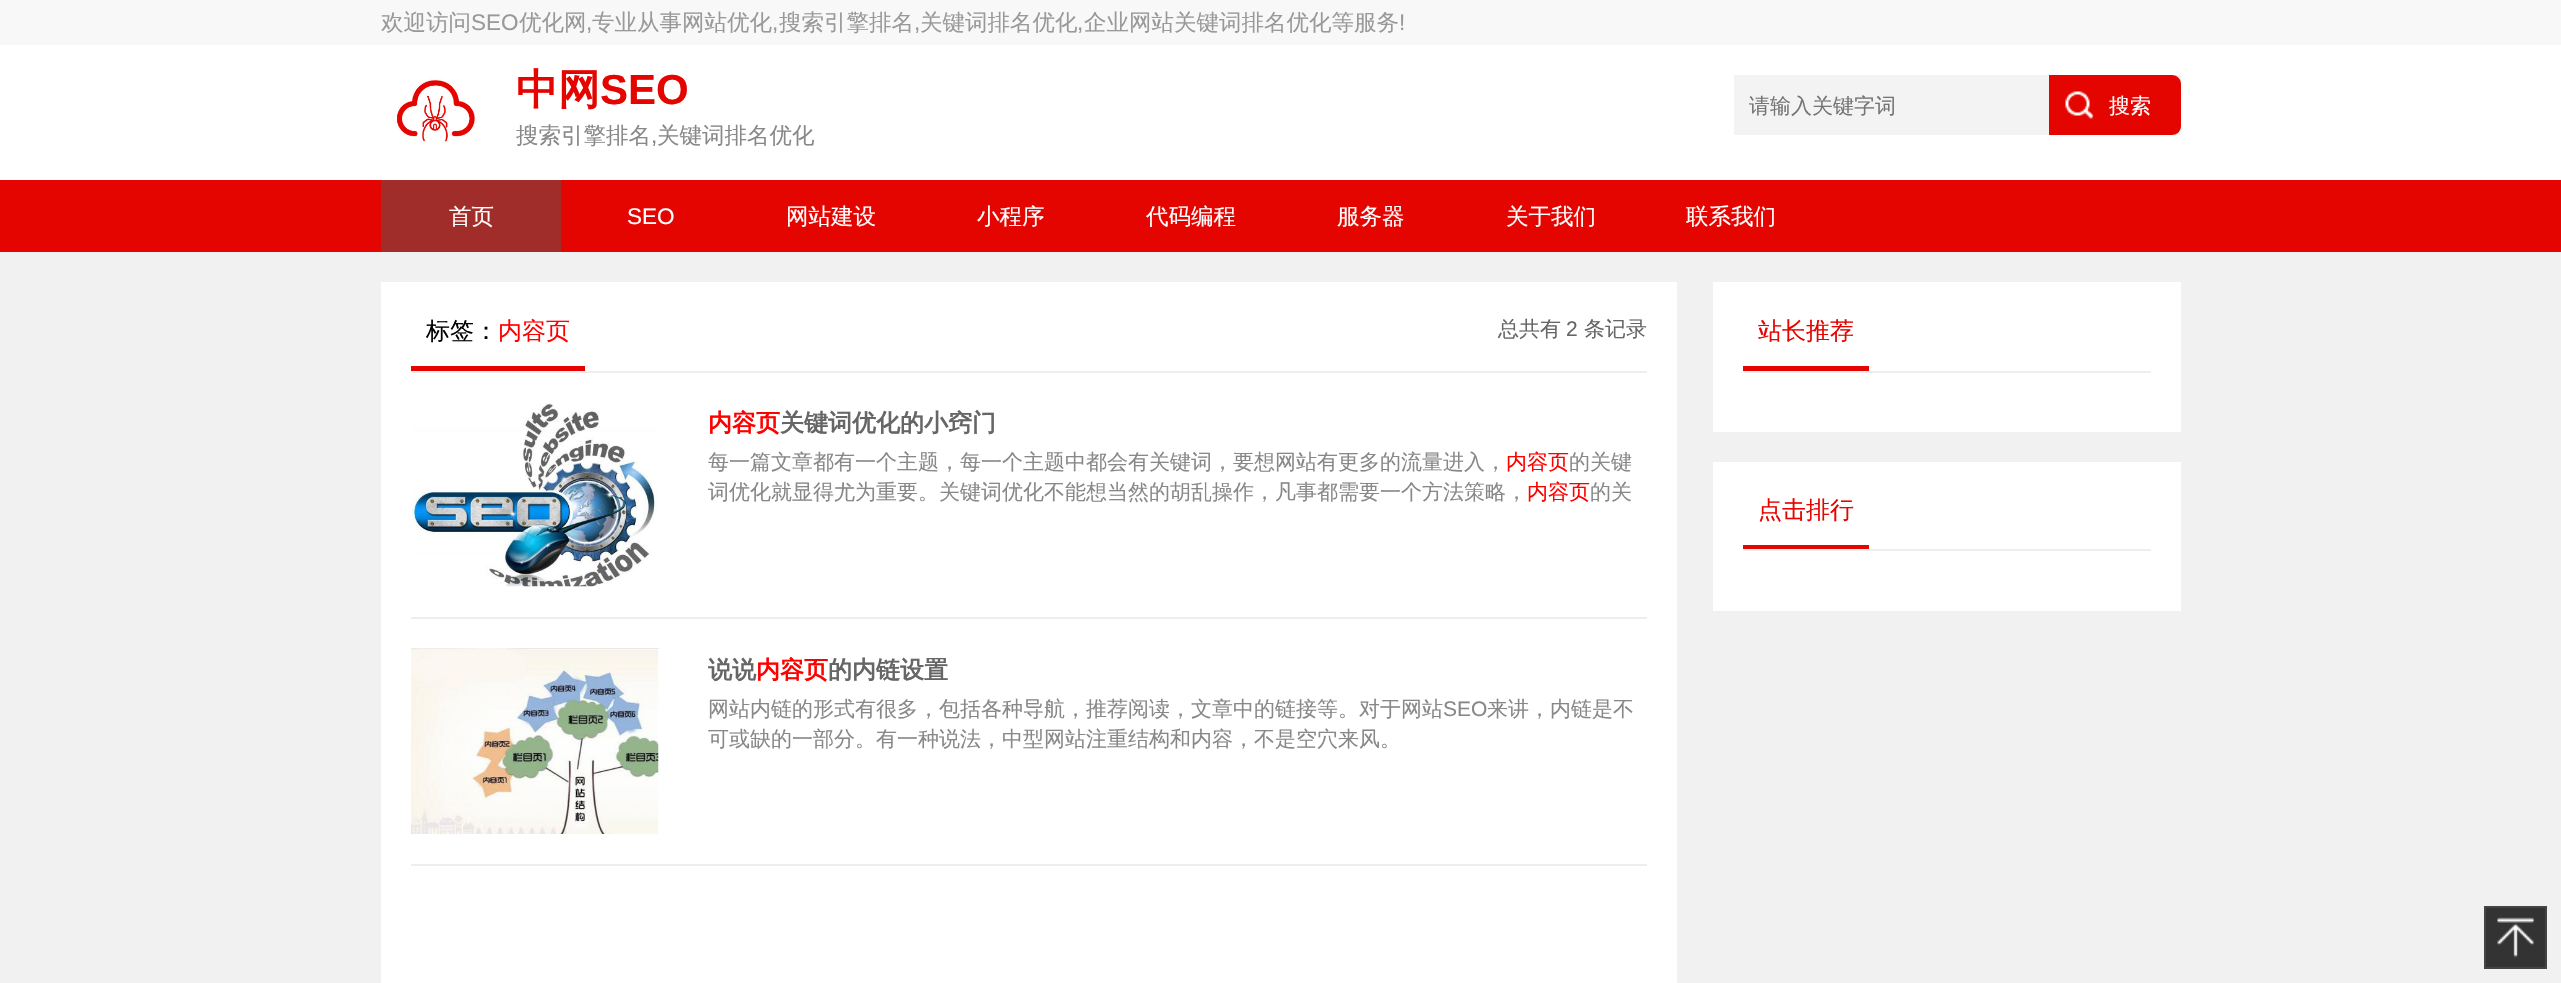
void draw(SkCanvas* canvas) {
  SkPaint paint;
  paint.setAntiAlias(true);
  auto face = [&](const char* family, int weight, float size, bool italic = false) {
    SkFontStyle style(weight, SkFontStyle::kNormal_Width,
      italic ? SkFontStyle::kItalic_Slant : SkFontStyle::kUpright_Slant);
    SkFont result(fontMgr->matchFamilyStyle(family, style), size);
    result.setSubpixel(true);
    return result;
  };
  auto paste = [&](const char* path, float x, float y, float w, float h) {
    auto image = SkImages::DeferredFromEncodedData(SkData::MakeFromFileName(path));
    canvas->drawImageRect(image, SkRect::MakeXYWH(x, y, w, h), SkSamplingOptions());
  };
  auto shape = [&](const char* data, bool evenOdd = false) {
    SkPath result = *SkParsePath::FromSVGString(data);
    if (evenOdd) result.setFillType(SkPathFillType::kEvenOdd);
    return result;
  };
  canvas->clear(0xfff1f1f1);
  paint.setColor(0xfff8f8f8);
  canvas->drawRect(SkRect::MakeXYWH(0, 0, 2561, 45), paint);
  paint.setColor(0xffffffff);
  canvas->drawRect(SkRect::MakeXYWH(0, 45, 2561, 135), paint);
  paste("img/1.png", 394, 77, 84, 67);
  paint.setColor(0xfff3f3f3);
  canvas->drawRect(SkRect::MakeXYWH(1734, 75, 447, 60), paint);
  paint.setColor(0xffe40500);
  canvas->drawPath(shape("M2049 75H2172C2177 75 2181 79 2181 84V126C2181 131 2177 135 2172 135H2049Z"), paint);
  paste("img/2.png", 2065, 91, 29, 28);
  {
    const struct { float x, y, w, h; SkColor color; } items[] = {
      {0, 180, 2561, 72, 0xffe40500},
      {381, 180, 180, 72, 0xffa02d2a},
      {381, 282, 1296, 701, 0xffffffff},
      {411, 371, 1236, 2, 0xffeeeeee},
      {411, 366, 174, 5, 0xffe40500},
    };
    for (auto [x, y, w, h, color] : items) {
      paint.setColor(color);
      canvas->drawRect(SkRect::MakeXYWH(x, y, w, h), paint);
    }
  }
  paste("img/3.png", 411, 403, 247, 184);
  paint.setColor(0xffeeeeee);
  canvas->drawRect(SkRect::MakeXYWH(411, 617, 1236, 2), paint);
  paste("img/4.png", 411, 648, 248, 186);
  {
    const struct { float x, y, w, h; SkColor color; } items[] = {
      {411, 864, 1236, 2, 0xffeeeeee},
      {1713, 282, 468, 150, 0xffffffff},
      {1743, 371, 408, 2, 0xffeeeeee},
      {1743, 366, 126, 5, 0xffe40500},
      {1713, 462, 468, 149, 0xffffffff},
      {1743, 549, 408, 2, 0xffeeeeee},
      {1743, 545, 126, 4, 0xffe40500},
      {2486, 908, 59, 59, 0xff333333},
    };
    for (auto [x, y, w, h, color] : items) {
      paint.setColor(color);
      canvas->drawRect(SkRect::MakeXYWH(x, y, w, h), paint);
    }
  }
  paste("img/5.png", 2497, 917, 38, 41);
  paint.setStroke(true);
  paint.setStrokeWidth(2);
  paint.setColor(0xff444444);
  canvas->drawRect(SkRect::MakeXYWH(2485, 907, 61, 61), paint);
  auto f0 = face("WenQuanYi Zen Hei", 500, 22.5f);
  paint.setStroke(false);
  paint.setColor(0xff999999);
  canvas->drawString("欢迎访问", 381, 30, f0, paint);
  auto f1 = face("Liberation Sans", 400, 22.5f);
  canvas->drawString("SEO", 471, 30, f1, paint);
  canvas->drawString("优化网", 519, 30, f0, paint);
  canvas->drawString(",", 586, 30, f1, paint);
  canvas->drawString("专业从事网站优化", 592, 30, f0, paint);
  canvas->drawString(",", 772, 30, f1, paint);
  canvas->drawString("搜索引擎排名", 779, 30, f0, paint);
  canvas->drawString(",", 914, 30, f1, paint);
  canvas->drawString("关键词排名优化", 920, 30, f0, paint);
  canvas->drawString(",", 1077, 30, f1, paint);
  canvas->drawString("企业网站关键词排名优化等服务", 1084, 30, f0, paint);
  canvas->drawString("!", 1399, 30, f1, paint);
  auto f2 = face("WenQuanYi Zen Hei", 700, 42);
  paint.setColor(0xffe40500);
  canvas->drawString("中网", 516, 104, f2, paint);
  auto f3 = face("Liberation Sans", 700, 42);
  canvas->drawString("SEO", 600, 104, f3, paint);
  paint.setColor(0xff888888);
  canvas->drawString("搜索引擎排名", 516, 143, f0, paint);
  canvas->drawString(",", 651, 143, f1, paint);
  canvas->drawString("关键词排名优化", 657, 143, f0, paint);
  auto f4 = face("WenQuanYi Zen Hei", 500, 21);
  paint.setColor(0xff757575);
  canvas->drawString("请输入关键字词", 1749, 113, f4, paint);
  paint.setColor(0xffffffff);
  canvas->drawString("搜索", 2109, 113, f4, paint);
  canvas->drawString("首页", 449, 224, f0, paint);
  canvas->drawString("SEO", 627, 224, f1, paint);
  {
    const struct { const char* s; float x, y; } items[] = {
      {"网站建设", 786, 224},
      {"小程序", 977, 224},
      {"代码编程", 1146, 224},
      {"服务器", 1337, 224},
      {"关于我们", 1506, 224},
      {"联系我们", 1686, 224},
    };
    for (auto [s, x, y] : items) {
      canvas->drawString(s, x, y, f0, paint);
    }
  }
  auto f5 = face("WenQuanYi Zen Hei", 500, 24);
  paint.setColor(0xff000000);
  canvas->drawString("标签：", 426, 339, f5, paint);
  paint.setColor(0xffff0000);
  canvas->drawString("内容页", 498, 339, f5, paint);
  paint.setColor(0xff666666);
  canvas->drawString("总共有", 1498, 336, f4, paint);
  auto f6 = face("Liberation Sans", 400, 21);
  canvas->drawString("2", 1566, 336, f6, paint);
  canvas->drawString("条记录", 1584, 336, f4, paint);
  auto f7 = face("WenQuanYi Zen Hei", 700, 24);
  paint.setColor(0xffff0000);
  canvas->drawString("内容页", 708, 431, f7, paint);
  paint.setColor(0xff666666);
  canvas->drawString("关键词优化的小窍门", 780, 431, f7, paint);
  paint.setColor(0xff888888);
  canvas->drawString("每一篇文章都有一个主题，每一个主题中都会有关键词，要想网站有更多的流量进入，", 708, 469, f4, paint);
  paint.setColor(0xffff0000);
  canvas->drawString("内容页", 1506, 469, f4, paint);
  paint.setColor(0xff888888);
  canvas->drawString("的关键", 1569, 469, f4, paint);
  canvas->drawString("词优化就显得尤为重要。关键词优化不能想当然的胡乱操作，凡事都需要一个方法策略，", 708, 499, f4, paint);
  paint.setColor(0xffff0000);
  canvas->drawString("内容页", 1527, 499, f4, paint);
  paint.setColor(0xff888888);
  canvas->drawString("的关", 1590, 499, f4, paint);
  paint.setColor(0xff666666);
  canvas->drawString("说说", 708, 678, f7, paint);
  paint.setColor(0xffff0000);
  canvas->drawString("内容页", 756, 678, f7, paint);
  paint.setColor(0xff666666);
  canvas->drawString("的内链设置", 828, 678, f7, paint);
  paint.setColor(0xff888888);
  canvas->drawString("网站内链的形式有很多，包括各种导航，推荐阅读，文章中的链接等。对于网站", 708, 716, f4, paint);
  canvas->drawString("SEO", 1443, 716, f6, paint);
  canvas->drawString("来讲，内链是不", 1487, 716, f4, paint);
  canvas->drawString("可或缺的一部分。有一种说法，中型网站注重结构和内容，不是空穴来风。", 708, 746, f4, paint);
  paint.setColor(0xffe40500);
  canvas->drawString("站长推荐", 1758, 339, f5, paint);
  canvas->drawString("点击排行", 1758, 518, f5, paint);
}
